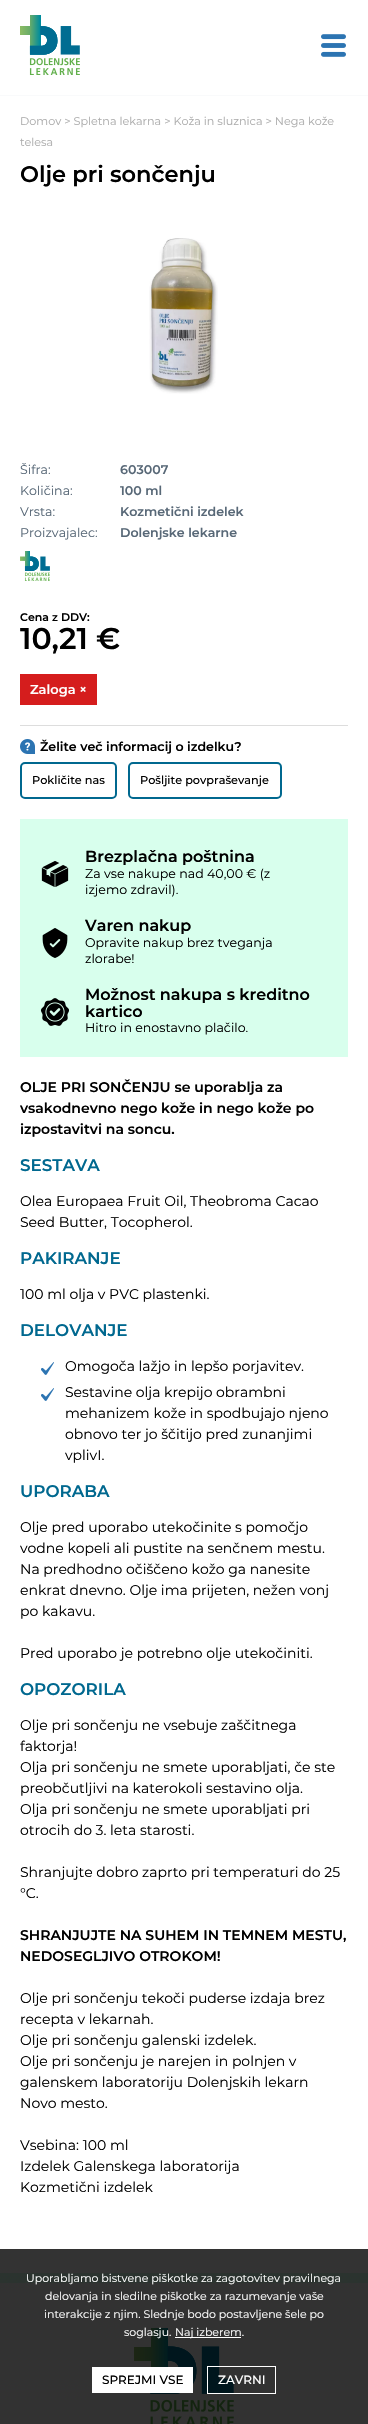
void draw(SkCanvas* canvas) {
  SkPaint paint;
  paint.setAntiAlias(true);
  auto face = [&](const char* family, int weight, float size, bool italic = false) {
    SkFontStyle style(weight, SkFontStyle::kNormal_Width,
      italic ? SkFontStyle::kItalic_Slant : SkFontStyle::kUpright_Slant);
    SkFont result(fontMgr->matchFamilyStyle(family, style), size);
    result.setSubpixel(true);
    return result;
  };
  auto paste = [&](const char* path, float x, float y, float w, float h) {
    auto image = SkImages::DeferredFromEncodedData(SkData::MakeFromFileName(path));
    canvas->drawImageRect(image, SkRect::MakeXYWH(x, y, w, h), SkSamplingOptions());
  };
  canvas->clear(0xffffffff);
  paint.setColor(0xff333333);
  canvas->drawRect(SkRect::MakeXYWH(0, 2249, 368, 24), paint);
  paint.setColor(0xfff9fafb);
  canvas->drawRect(SkRect::MakeXYWH(0, 95, 368, 1), paint);
  paste("img/1.png", 20, 15, 60, 60);
  paste("img/2.png", 321, 34, 25, 23);
  paste("img/3.png", 149, 238, 69, 156);
  paste("img/4.png", 20, 551, 30, 30);
  paint.setColor(0xffd51d1d);
  canvas->drawRect(SkRect::MakeXYWH(20, 674, 77, 31), paint);
  paint.setColor(0xffdddddd);
  canvas->drawRect(SkRect::MakeXYWH(20, 725, 328, 1), paint);
  paste("img/5.png", 20, 739, 15, 15);
  paint.setStroke(true);
  paint.setStrokeWidth(2);
  paint.setColor(0xff00688f);
  canvas->drawRoundRect(SkRect::MakeXYWH(21, 763, 95, 35), 4, 4, paint);
  canvas->drawRoundRect(SkRect::MakeXYWH(129, 763, 152, 35), 4, 4, paint);
  paint.setStroke(false);
  paint.setColor(0xffd8ffed);
  canvas->drawRect(SkRect::MakeXYWH(20, 819, 328, 238), paint);
  paste("img/6.png", 41, 861, 28, 26);
  paste("img/7.png", 42, 928, 26, 30);
  paste("img/8.png", 40, 998, 29, 28);
  paste("img/9.png", 41, 1362, 13, 13);
  paste("img/9.png", 41, 1388, 13, 13);
  paint.setColor(0xff323232);
  canvas->drawRect(SkRect::MakeXYWH(0, 2283, 368, 141), paint);
  paint.setColor(0xff2b332f);
  canvas->drawRect(SkRect::MakeXYWH(0, 2273, 368, 10), paint);
  paste("img/10.png", 134, 2328, 100, 96);
  paint.setColor(0xffffffff);
  canvas->drawRect(SkRect::MakeXYWH(175, 2337, 66, 1), paint);
  canvas->drawRect(SkRect::MakeXYWH(92, 2367, 101, 26), paint);
  paint.setStroke(true);
  paint.setStrokeWidth(1);
  canvas->drawRect(SkRect::MakeXYWH(207.5f, 2366.5f, 68, 27), paint);
  auto f0 = face("Montserrat", 400, 11.2f);
  paint.setStroke(false);
  paint.setColor(0xffacacac);
  canvas->drawString("Domov > Spletna lekarna > Koža in sluznica > Nega kože", 20, 125, f0, paint);
  canvas->drawString("telesa", 20, 146, f0, paint);
  auto f1 = face("Montserrat", 600, 22.5f);
  paint.setColor(0xff000000);
  canvas->drawString("Olje pri sončenju", 20, 182, f1, paint);
  auto f2 = face("Montserrat", 400, 12.6f);
  paint.setColor(0xff586877);
  canvas->drawString("Šifra:", 20, 474, f2, paint);
  auto f3 = face("Montserrat", 600, 12.6f);
  canvas->drawString("603007", 120, 474, f3, paint);
  canvas->drawString("Količina:", 20, 495, f2, paint);
  canvas->drawString("100 ml", 120, 495, f3, paint);
  canvas->drawString("Vrsta:", 20, 516, f2, paint);
  canvas->drawString("Kozmetični izdelek", 120, 516, f3, paint);
  canvas->drawString("Proizvajalec:", 20, 537, f2, paint);
  canvas->drawString("Dolenjske lekarne", 120, 537, f3, paint);
  auto f4 = face("Montserrat", 600, 11);
  paint.setColor(0xff000000);
  canvas->drawString("Cena z DDV:", 20, 621, f4, paint);
  auto f5 = face("Montserrat", 600, 30);
  canvas->drawString("10,21 €", 20, 649, f5, paint);
  auto f6 = face("Montserrat", 600, 13);
  paint.setColor(0xffffffff);
  canvas->drawString("Zaloga ×", 30, 694, f6, paint);
  paint.setColor(0xff000000);
  canvas->drawString("Želite več informacij o izdelku?", 40, 751, f3, paint);
  auto f7 = face("Montserrat", 500, 11.3f);
  canvas->drawString("Pokličite nas", 32, 784, f7, paint);
  canvas->drawString("Pošljite povpraševanje", 140, 784, f7, paint);
  auto f8 = face("Montserrat", 600, 16);
  canvas->drawString("Brezplačna poštnina", 85, 862, f8, paint);
  canvas->drawString("Za vse nakupe nad 40,00 € (z", 85, 878, f2, paint);
  canvas->drawString("izjemo zdravil).", 85, 894, f2, paint);
  canvas->drawString("Varen nakup", 85, 931, f8, paint);
  canvas->drawString("Opravite nakup brez tveganja", 85, 947, f2, paint);
  canvas->drawString("zlorabe!", 85, 963, f2, paint);
  canvas->drawString("Možnost nakupa s kreditno", 85, 1000, f8, paint);
  canvas->drawString("kartico", 85, 1017, f8, paint);
  canvas->drawString("Hitro in enostavno plačilo.", 85, 1032, f2, paint);
  auto f9 = face("Montserrat", 600, 14);
  {
    const struct { const char* s; float x, y; } items[] = {
      {"OLJE PRI SONČENJU se uporablja za", 20, 1092},
      {"vsakodnevno nego kože in nego kože po", 20, 1113},
      {"izpostavitvi na soncu.", 20, 1134},
    };
    for (auto [s, x, y] : items) {
      canvas->drawString(s, x, y, f9, paint);
    }
  }
  auto f10 = face("Montserrat", 600, 16.75f);
  paint.setColor(0xff00688f);
  canvas->drawString("SESTAVA", 20, 1171, f10, paint);
  auto f11 = face("Montserrat", 400, 14);
  paint.setColor(0xff000000);
  canvas->drawString("Olea Europaea Fruit Oil, Theobroma Cacao", 20, 1206, f11, paint);
  canvas->drawString("Seed Butter, Tocopherol.", 20, 1227, f11, paint);
  paint.setColor(0xff00688f);
  canvas->drawString("PAKIRANJE", 20, 1264, f10, paint);
  paint.setColor(0xff000000);
  canvas->drawString("100 ml olja v PVC plastenki.", 20, 1299, f11, paint);
  paint.setColor(0xff00688f);
  canvas->drawString("DELOVANJE", 20, 1336, f10, paint);
  paint.setColor(0xff000000);
  {
    const struct { const char* s; float x, y; } items[] = {
      {"Omogoča lažjo in lepšo porjavitev.", 65, 1371},
      {"Sestavine olja krepijo obrambni", 65, 1397},
      {"mehanizem kože in spodbujajo njeno", 65, 1418},
      {"obnovo ter jo ščitijo pred zunanjimi", 65, 1439},
      {"vplivI.", 65, 1460},
    };
    for (auto [s, x, y] : items) {
      canvas->drawString(s, x, y, f11, paint);
    }
  }
  paint.setColor(0xff00688f);
  canvas->drawString("UPORABA", 20, 1497, f10, paint);
  paint.setColor(0xff000000);
  {
    const struct { const char* s; float x, y; } items[] = {
      {"Olje pred uporabo utekočinite s pomočjo", 20, 1532},
      {"vodne kopeli ali pustite na senčnem mestu.", 20, 1553},
      {"Na predhodno očiščeno kožo ga nanesite", 20, 1574},
      {"enkrat dnevno. Olje ima prijeten, nežen vonj", 20, 1595},
      {"po kakavu.", 20, 1616},
      {"Pred uporabo je potrebno olje utekočiniti.", 20, 1658},
    };
    for (auto [s, x, y] : items) {
      canvas->drawString(s, x, y, f11, paint);
    }
  }
  paint.setColor(0xff00688f);
  canvas->drawString("OPOZORILA", 20, 1695, f10, paint);
  paint.setColor(0xff000000);
  {
    const struct { const char* s; float x, y; } items[] = {
      {"Olje pri sončenju ne vsebuje zaščitnega", 20, 1730},
      {"faktorja!", 20, 1751},
      {"Olja pri sončenju ne smete uporabljati, če ste", 20, 1772},
      {"preobčutljivi na katerokoli sestavino olja.", 20, 1793},
      {"Olja pri sončenju ne smete uporabljati pri", 20, 1814},
      {"otrocih do 3. leta starosti.", 20, 1835},
      {"Shranjujte dobro zaprto pri temperaturi do 25", 20, 1877},
      {"°C.", 20, 1898},
    };
    for (auto [s, x, y] : items) {
      canvas->drawString(s, x, y, f11, paint);
    }
  }
  canvas->drawString("SHRANJUJTE NA SUHEM IN TEMNEM MESTU,", 20, 1940, f9, paint);
  canvas->drawString("NEDOSEGLJIVO OTROKOM!", 20, 1961, f9, paint);
  {
    const struct { const char* s; float x, y; } items[] = {
      {"Olje pri sončenju tekoči puderse izdaja brez", 20, 2003},
      {"recepta v lekarnah.", 20, 2024},
      {"Olje pri sončenju galenski izdelek.", 20, 2045},
      {"Olje pri sončenju je narejen in polnjen v", 20, 2066},
      {"galenskem laboratoriju Dolenjskih lekarn", 20, 2087},
      {"Novo mesto.", 20, 2108},
      {"Vsebina: 100 ml", 20, 2150},
      {"Izdelek Galenskega laboratorija", 20, 2171},
      {"Kozmetični izdelek", 20, 2192},
    };
    for (auto [s, x, y] : items) {
      canvas->drawString(s, x, y, f11, paint);
    }
  }
  auto f12 = face("Montserrat", 400, 11);
  paint.setColor(0xffffffff);
  {
    const struct { const char* s; float x, y; } items[] = {
      {"Uporabljamo bistvene piškotke za zagotovitev pravilnega", 26, 2282},
      {"delovanja in sledilne piškotke za razumevanje vaše", 45, 2300},
      {"interakcije z njim. Slednje bodo postavljene šele po", 44, 2318},
      {"soglasju.", 124, 2336},
      {"Naj izberem.", 175, 2336},
    };
    for (auto [s, x, y] : items) {
      canvas->drawString(s, x, y, f12, paint);
    }
  }
  auto f13 = face("Montserrat", 500, 12);
  paint.setColor(0xff000000);
  canvas->drawString("SPREJMI VSE", 102, 2384, f13, paint);
  paint.setColor(0xffffffff);
  canvas->drawString("ZAVRNI", 218, 2384, f13, paint);
}
